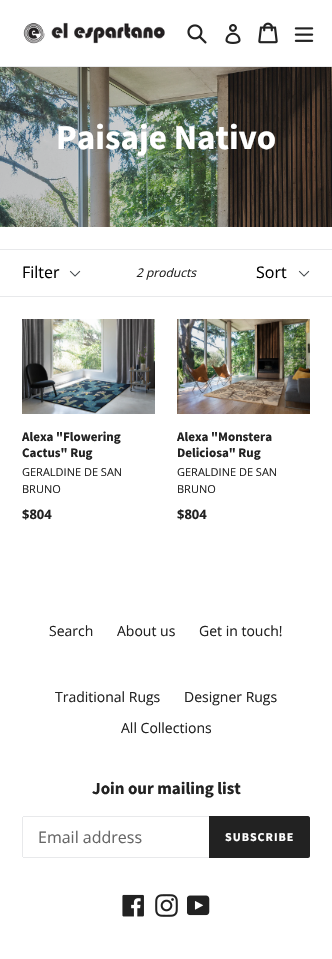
void draw(SkCanvas* canvas) {
  SkPaint paint;
  paint.setAntiAlias(true);
  auto face = [&](const char* family, int weight, float size, bool italic = false) {
    SkFontStyle style(weight, SkFontStyle::kNormal_Width,
      italic ? SkFontStyle::kItalic_Slant : SkFontStyle::kUpright_Slant);
    SkFont result(fontMgr->matchFamilyStyle(family, style), size);
    result.setSubpixel(true);
    return result;
  };
  auto writeSpaced = [&](const char* s, float x, float y, const SkFont& font, const SkPaint& ink, float letter, float word) {
    std::vector<SkGlyphID> glyphs(font.countText(s, strlen(s), SkTextEncoding::kUTF8));
    std::vector<float> xs(glyphs.size());
    font.textToGlyphs(s, strlen(s), SkTextEncoding::kUTF8, glyphs);
    font.getXPos(glyphs, xs, x);
    float extra = 0;
    for (size_t i = 0; i < glyphs.size(); i++) {
      xs[i] += extra;
      extra += letter + word * (glyphs[i] == font.unicharToGlyph(' '));
    }
    canvas->drawTextBlob(SkTextBlob::MakeFromPosHGlyphs(glyphs, xs, y, font), 0, 0, ink);
  };
  auto paste = [&](const char* path, float x, float y, float w, float h) {
    auto image = SkImages::DeferredFromEncodedData(SkData::MakeFromFileName(path));
    canvas->drawImageRect(image, SkRect::MakeXYWH(x, y, w, h), SkSamplingOptions());
  };
  auto shape = [&](const char* data, bool evenOdd = false) {
    SkPath result = *SkParsePath::FromSVGString(data);
    if (evenOdd) result.setFillType(SkPathFillType::kEvenOdd);
    return result;
  };
  canvas->clear(0xffffffff);
  paint.setColor(0xffe8e9eb);
  canvas->drawRect(SkRect::MakeXYWH(0, 66, 332, 1), paint);
  paste("img/1.png", 23, 22, 142, 22);
  paste("img/2.png", 187, 24, 20, 20);
  paste("img/3.png", 225, 24, 16, 20);
  paste("img/4.png", 258, 22, 20, 22);
  paste("img/5.png", 294, 27, 20, 15);
  paste("img/6.png", 0, 67, 332, 160);
  canvas->drawRect(SkRect::MakeXYWH(0, 249, 332, 1), paint);
  canvas->drawRect(SkRect::MakeXYWH(0, 296, 332, 1), paint);
  paste("img/7.png", 69, 270, 12, 7);
  paste("img/7.png", 298, 270, 12, 7);
  paste("img/8.png", 22, 319, 133, 95);
  paste("img/9.png", 177, 319, 133, 95);
  {
    const struct { float x, y, w, h; SkColor color; } items[] = {
      {23, 816, 186, 1, 0xffe8e9eb},
      {23, 857, 186, 1, 0xffe8e9eb},
      {22, 817, 1, 40, 0xffe8e9eb},
    };
    for (auto [x, y, w, h, color] : items) {
      paint.setColor(color);
      canvas->drawRect(SkRect::MakeXYWH(x, y, w, h), paint);
    }
  }
  paint.setColor(0xff222222);
  canvas->drawPath(shape("M209 816H308C309 816 310 817 310 818V856C310 857 309 858 308 858H209Z"), paint);
  paste("img/10.png", 122, 894, 22, 23);
  paste("img/11.png", 155, 894, 23, 23);
  paste("img/12.png", 187, 895, 23, 21);
  auto f0 = face("Source Sans Pro", 700, 35);
  paint.setColor(0xffffffff);
  canvas->drawString("Paisaje Nativo", 56, 149, f0, paint);
  auto f1 = face("Open Sans", 400, 16);
  paint.setColor(0xff000000);
  canvas->drawString("Filter", 22, 278, f1, paint);
  auto f2 = face("Open Sans", 400, 12, true);
  paint.setColor(0xff222222);
  canvas->drawString("2 products", 136, 277, f2, paint);
  paint.setColor(0xff000000);
  canvas->drawString("Sort", 256, 278, f1, paint);
  auto f3 = face("Source Sans Pro", 700, 13);
  paint.setColor(0xff222222);
  canvas->drawString("Alexa \"Flowering", 22, 441, f3, paint);
  canvas->drawString("Cactus\" Rug", 22, 457, f3, paint);
  auto f4 = face("Open Sans", 400, 11);
  canvas->drawString("GERALDINE DE SAN", 22, 476, f4, paint);
  canvas->drawString("BRUNO", 22, 493, f4, paint);
  auto f5 = face("Open Sans", 700, 13);
  canvas->drawString("$804", 22, 519, f5, paint);
  canvas->drawString("Alexa \"Monstera", 177, 441, f3, paint);
  canvas->drawString("Deliciosa\" Rug", 177, 457, f3, paint);
  canvas->drawString("GERALDINE DE SAN", 177, 476, f4, paint);
  canvas->drawString("BRUNO", 177, 493, f4, paint);
  canvas->drawString("$804", 177, 519, f5, paint);
  auto f6 = face("Open Sans", 400, 14);
  {
    const struct { const char* s; float x, y; } items[] = {
      {"Search", 49, 636},
      {"About us", 117, 636},
      {"Get in touch!", 199, 636},
      {"Traditional Rugs", 55, 702},
      {"Designer Rugs", 184, 702},
      {"All Collections", 121, 733},
    };
    for (auto [s, x, y] : items) {
      canvas->drawString(s, x, y, f6, paint);
    }
  }
  auto f7 = face("Source Sans Pro", 700, 17);
  canvas->drawString("Join our mailing list", 92, 794, f7, paint);
  paint.setColor(0xff666666);
  canvas->drawString("Email address", 38, 843, f1, paint);
  auto f8 = face("Source Sans Pro", 700, 12);
  paint.setColor(0xffffffff);
  writeSpaced("SUBSCRIBE", 225, 841, f8, paint, 1, 0);
}
